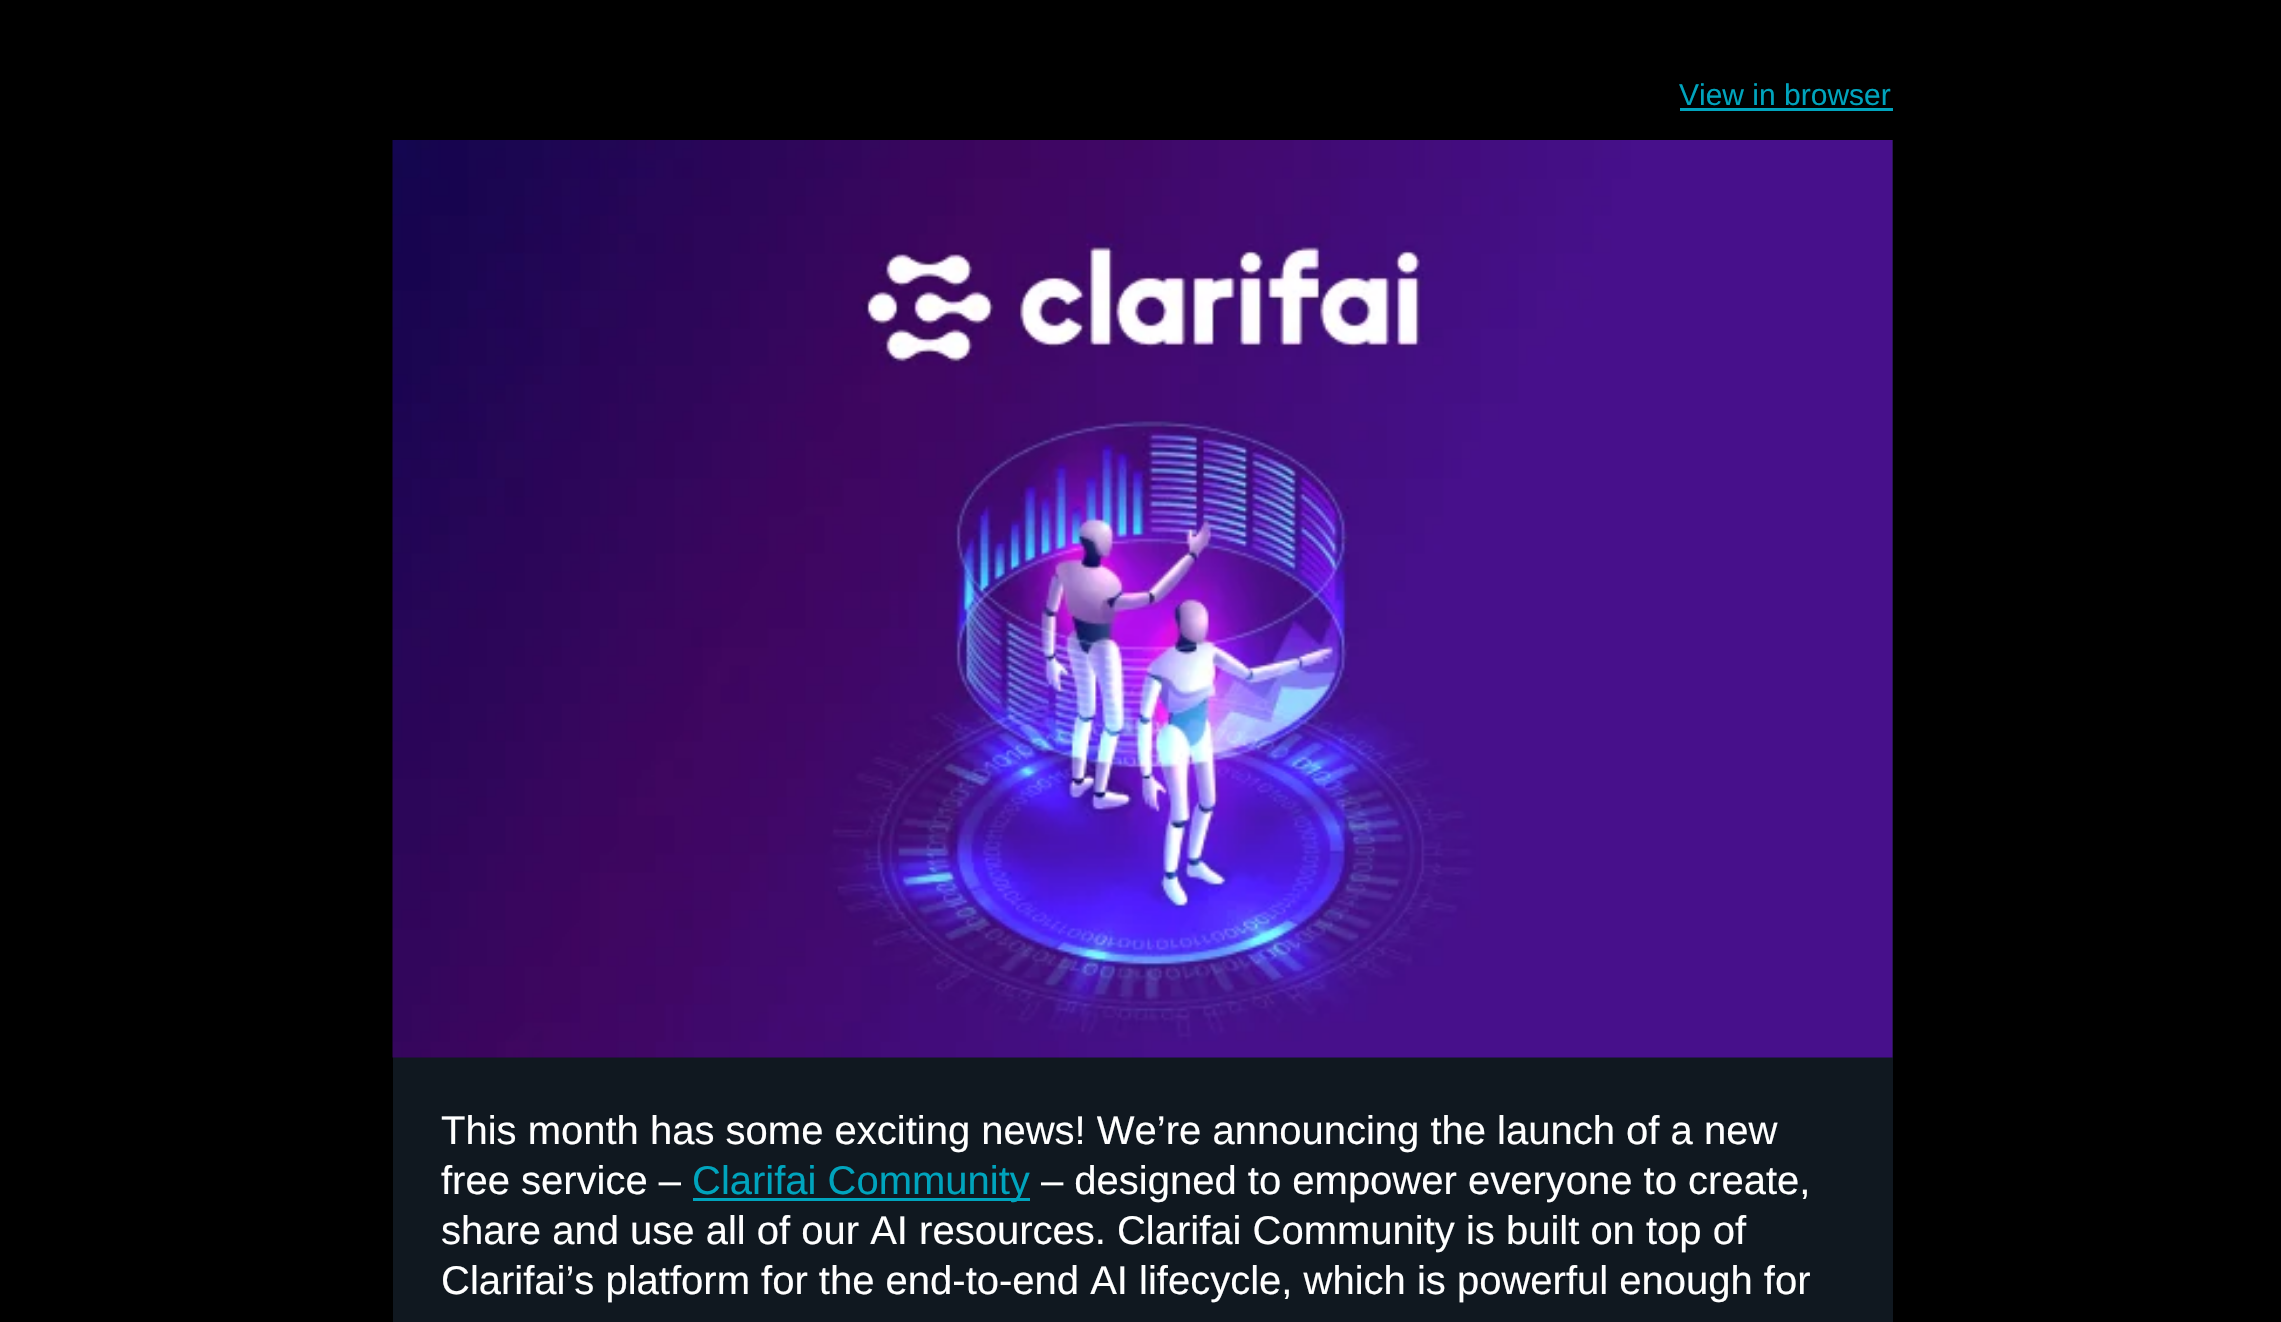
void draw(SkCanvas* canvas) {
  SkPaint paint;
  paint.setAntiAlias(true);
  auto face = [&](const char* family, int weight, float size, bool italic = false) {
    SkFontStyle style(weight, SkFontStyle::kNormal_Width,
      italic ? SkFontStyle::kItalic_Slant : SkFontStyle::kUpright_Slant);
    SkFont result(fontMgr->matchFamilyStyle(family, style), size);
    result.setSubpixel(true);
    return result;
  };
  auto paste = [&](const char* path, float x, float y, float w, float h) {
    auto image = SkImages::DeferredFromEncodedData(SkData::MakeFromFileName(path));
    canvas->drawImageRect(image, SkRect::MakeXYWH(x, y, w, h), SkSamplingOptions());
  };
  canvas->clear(0xff000000);
  paint.setColor(0xff00a4bd);
  canvas->drawRect(SkRect::MakeXYWH(1680, 108, 213, 3), paint);
  paint.setColor(0xff101820);
  canvas->drawRect(SkRect::MakeXYWH(393, 140, 1500, 1182), paint);
  paste("img/1.png", 392, 140, 1501, 918);
  paint.setColor(0xff00a4bd);
  canvas->drawRect(SkRect::MakeXYWH(693, 1198, 337, 3), paint);
  auto f0 = face("Liberation Sans", 400, 30);
  canvas->drawString("View in browser", 1679, 105, f0, paint);
  auto f1 = face("Liberation Sans", 400, 40);
  paint.setColor(0xffffffff);
  canvas->drawString("This month has some exciting news! We’re announcing the launch of a new", 441, 1144, f1, paint);
  canvas->drawString("free service –", 441, 1194, f1, paint);
  paint.setColor(0xff00a4bd);
  canvas->drawString("Clarifai Community", 692, 1194, f1, paint);
  paint.setColor(0xffffffff);
  {
    const struct { const char* s; float x, y; } items[] = {
      {"– designed to empower everyone to create,", 1041, 1194},
      {"share and use all of our AI resources. Clarifai Community is built on top of", 441, 1244},
      {"Clarifai’s platform for the end-to-end AI lifecycle, which is powerful enough for", 441, 1294},
    };
    for (auto [s, x, y] : items) {
      canvas->drawString(s, x, y, f1, paint);
    }
  }
}
